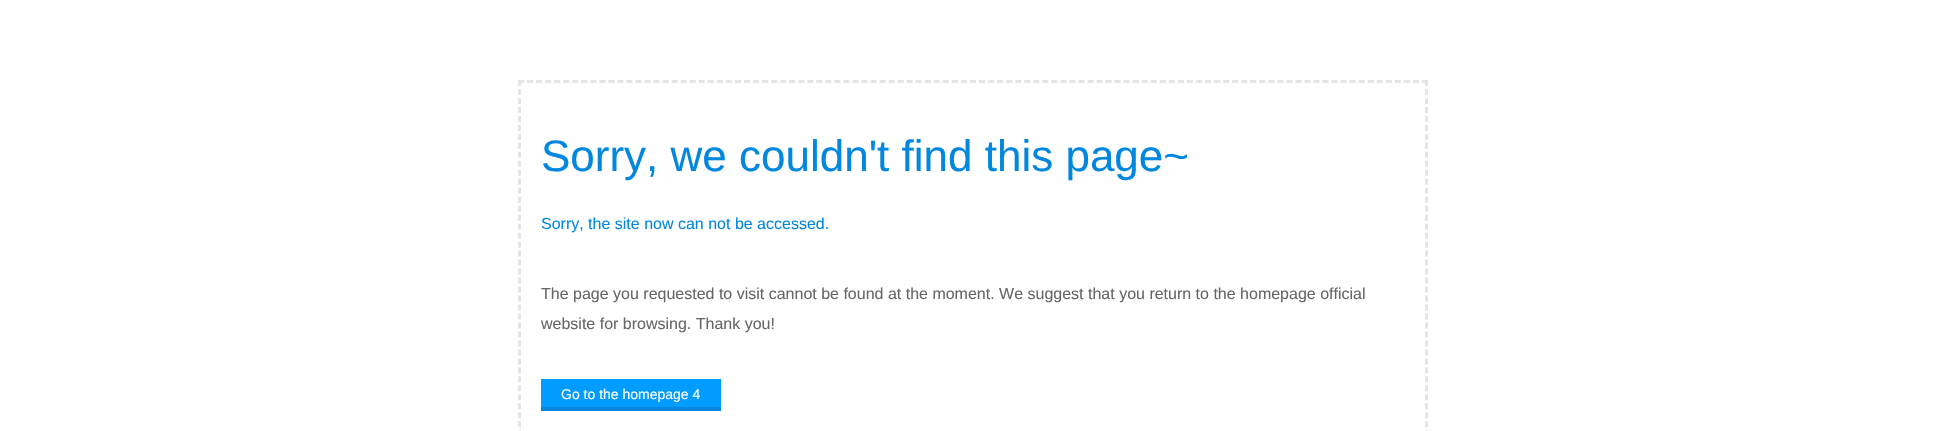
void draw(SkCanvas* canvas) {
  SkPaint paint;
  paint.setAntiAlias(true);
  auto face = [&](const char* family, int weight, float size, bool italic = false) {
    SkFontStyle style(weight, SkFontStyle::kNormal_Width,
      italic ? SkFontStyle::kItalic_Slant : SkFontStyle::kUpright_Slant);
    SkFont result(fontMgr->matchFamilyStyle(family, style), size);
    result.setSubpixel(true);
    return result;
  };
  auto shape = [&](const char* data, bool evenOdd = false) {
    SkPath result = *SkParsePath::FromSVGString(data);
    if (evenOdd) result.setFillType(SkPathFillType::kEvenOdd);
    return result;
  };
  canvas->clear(0xffffffff);
  paint.setStroke(true);
  paint.setStrokeWidth(3);
  paint.setColor(0xffe4e4e4);
  paint.setPathEffect(SkDashPathEffect::Make({{6, 3.04f}}, 0));
  canvas->drawPath(shape("M518 81.5H1428"), paint);
  paint.setPathEffect(nullptr);
  paint.setPathEffect(SkDashPathEffect::Make({{6, 2.98f}}, 0));
  canvas->drawPath(shape("M1426.5 80V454"), paint);
  paint.setPathEffect(nullptr);
  paint.setPathEffect(SkDashPathEffect::Make({{6, 2.98f}}, 0));
  canvas->drawPath(shape("M519.5 80V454"), paint);
  paint.setPathEffect(nullptr);
  paint.setStroke(false);
  paint.setColor(0xff009cff);
  canvas->drawRect(SkRect::MakeXYWH(541, 379, 180, 28), paint);
  paint.setColor(0xff0188de);
  canvas->drawRect(SkRect::MakeXYWH(541, 407, 180, 4), paint);
  auto f0 = face("Liberation Sans", 400, 44);
  canvas->drawString("Sorry, we couldn't find this page~", 541, 171, f0, paint);
  auto f1 = face("Liberation Sans", 400, 16);
  canvas->drawString("Sorry, the site now can not be accessed.", 541, 229, f1, paint);
  paint.setColor(0xff666666);
  canvas->drawString("The page you requested to visit cannot be found at the moment. We suggest that you return to the homepage official", 541, 299, f1, paint);
  canvas->drawString("website for browsing. Thank you!", 541, 329, f1, paint);
  auto f2 = face("Liberation Sans", 400, 14);
  paint.setColor(0xffffffff);
  canvas->drawString("Go to the homepage 4", 561, 399, f2, paint);
}
